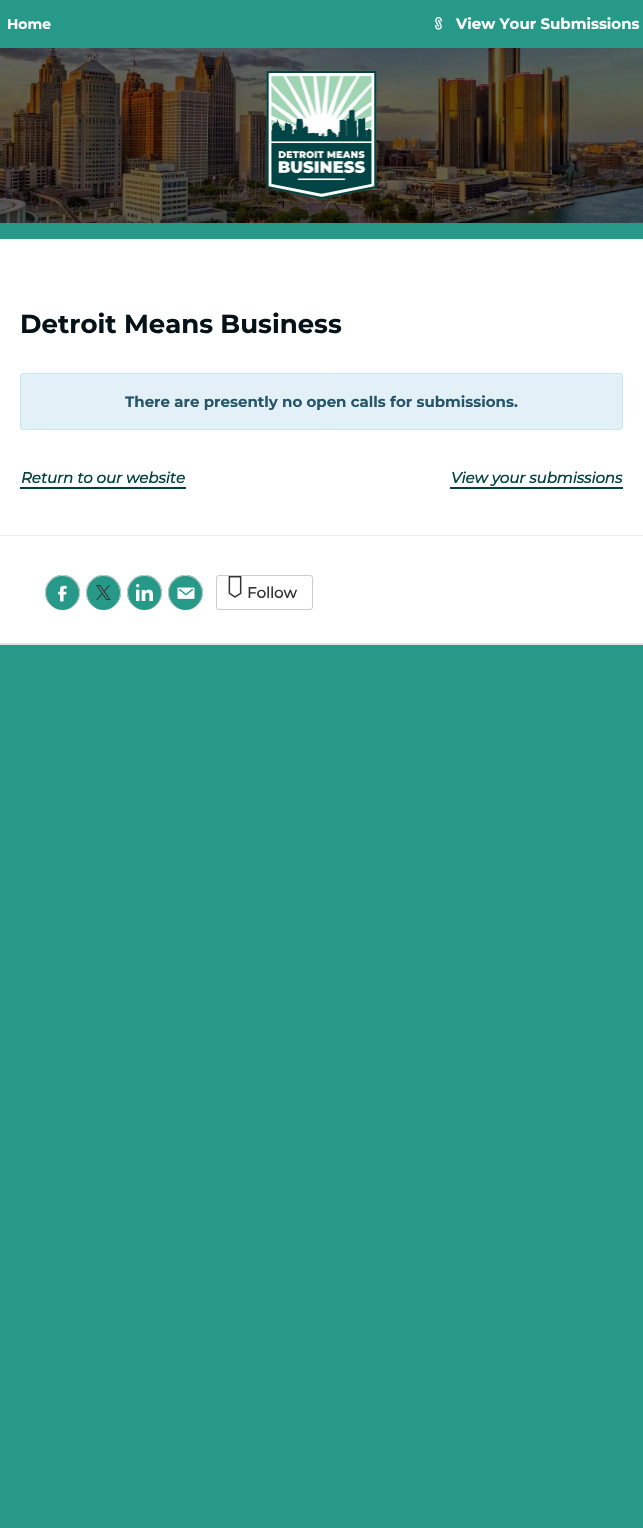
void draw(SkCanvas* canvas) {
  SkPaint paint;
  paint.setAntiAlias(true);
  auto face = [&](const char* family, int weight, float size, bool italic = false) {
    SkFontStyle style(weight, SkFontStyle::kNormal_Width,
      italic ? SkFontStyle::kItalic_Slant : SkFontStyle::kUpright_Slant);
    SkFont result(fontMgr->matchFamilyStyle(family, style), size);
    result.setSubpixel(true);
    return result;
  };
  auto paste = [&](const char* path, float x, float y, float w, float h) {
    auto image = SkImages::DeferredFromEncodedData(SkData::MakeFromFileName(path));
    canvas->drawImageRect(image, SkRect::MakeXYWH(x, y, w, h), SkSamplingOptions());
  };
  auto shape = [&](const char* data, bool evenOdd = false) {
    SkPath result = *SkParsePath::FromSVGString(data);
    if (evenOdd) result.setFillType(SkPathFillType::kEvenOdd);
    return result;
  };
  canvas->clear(0xff279989);
  paste("img/1.png", 435, 16, 7, 14);
  paste("img/2.png", 0, 48, 643, 175);
  paste("img/3.png", 266, 70, 111, 130);
  paint.setColor(0xffffffff);
  canvas->drawRect(SkRect::MakeXYWH(0, 239, 643, 296), paint);
  paint.setColor(0xffe3f0f7);
  canvas->drawRoundRect(SkRect::MakeXYWH(20.5f, 373.5f, 602, 56), 2.5f, 2.5f, paint);
  paint.setStroke(true);
  paint.setStrokeWidth(1);
  paint.setColor(0xffc7e8ef);
  canvas->drawRoundRect(SkRect::MakeXYWH(20.5f, 373.5f, 602, 56), 2.5f, 2.5f, paint);
  paint.setStroke(false);
  {
    const struct { float x, y, w, h; SkColor color; } items[] = {
      {20, 487, 166, 2, 0xff014140},
      {450, 487, 173, 2, 0xff014140},
      {0, 536, 643, 107, 0xffffffff},
      {0, 535, 643, 1, 0xffeeeeee},
      {0, 643, 643, 2, 0xffe5e5e5},
    };
    for (auto [x, y, w, h, color] : items) {
      paint.setColor(color);
      canvas->drawRect(SkRect::MakeXYWH(x, y, w, h), paint);
    }
  }
  paint.setColor(0xff279989);
  canvas->drawCircle(62.5f, 592.5f, 17.5f, paint);
  paint.setColor(0xffcccccc);
  canvas->drawPath(shape("M62.5 575C72 575 80 583 80 592.5C80 602 72 610 62.5 610C53 610 45 602 45 592.5C45 583 53 575 62.5 575ZM62.5 576C71.5 576 79 583.5 79 592.5C79 602 71.5 610 62.5 610C53.5 610 46 602 46 592.5C46 583.5 53.5 576 62.5 576Z", true), paint);
  paste("img/4.png", 58, 585, 9, 17);
  paint.setColor(0xff279989);
  canvas->drawCircle(103.5f, 592.5f, 17.5f, paint);
  paint.setColor(0xffcccccc);
  canvas->drawPath(shape("M103.5 575C113 575 121 583 121 592.5C121 602 113 610 103.5 610C94 610 86 602 86 592.5C86 583 94 575 103.5 575ZM103.5 576C112.5 576 120 583.5 120 592.5C120 602 112.5 610 103.5 610C94.5 610 87 602 87 592.5C87 583.5 94.5 576 103.5 576Z", true), paint);
  paste("img/5.png", 96, 585, 15, 15);
  paint.setColor(0xff279989);
  canvas->drawCircle(144.5f, 592.5f, 17.5f, paint);
  paint.setColor(0xffcccccc);
  canvas->drawPath(shape("M144.5 575C154 575 162 583 162 592.5C162 602 154 610 144.5 610C135 610 127 602 127 592.5C127 583 135 575 144.5 575ZM144.5 576C153.5 576 161 583.5 161 592.5C161 602 153.5 610 144.5 610C135.5 610 128 602 128 592.5C128 583.5 135.5 576 144.5 576Z", true), paint);
  paste("img/6.png", 136, 584, 17, 17);
  paint.setColor(0xff279989);
  canvas->drawCircle(185.5f, 592.5f, 17.5f, paint);
  paint.setColor(0xffcccccc);
  canvas->drawPath(shape("M185.5 575C195 575 203 583 203 592.5C203 602 195 610 185.5 610C176 610 168 602 168 592.5C168 583 176 575 185.5 575ZM185.5 576C194.5 576 202 583.5 202 592.5C202 602 194.5 610 185.5 610C176.5 610 169 602 169 592.5C169 583.5 176.5 576 185.5 576Z", true), paint);
  paste("img/7.png", 177, 587, 18, 12);
  paint.setStroke(true);
  canvas->drawRoundRect(SkRect::MakeXYWH(216.5f, 575.5f, 96, 34), 2.5f, 2.5f, paint);
  paste("img/8.png", 228, 576, 14, 22);
  auto f0 = face("Montserrat", 700, 14);
  paint.setStroke(false);
  paint.setColor(0xffffffff);
  canvas->drawString("Home", 7, 29, f0, paint);
  auto f1 = face("Montserrat", 700, 15);
  canvas->drawString("View Your Submissions", 456, 29, f1, paint);
  auto f2 = face("Montserrat", 700, 26);
  paint.setColor(0xff051218);
  canvas->drawString("Detroit Means Business", 20, 333, f2, paint);
  paint.setColor(0xff275669);
  canvas->drawString("There are presently no open calls for submissions.", 125, 407, f1, paint);
  auto f3 = face("Montserrat", 700, 15, true);
  paint.setColor(0xff014140);
  canvas->drawString("Return to our website", 21, 483, f3, paint);
  canvas->drawString("View your submissions", 451, 483, f3, paint);
  auto f4 = face("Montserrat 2", 700, 15);
  paint.setColor(0xff333333);
  canvas->drawString("Follow", 247, 598, f4, paint);
}
